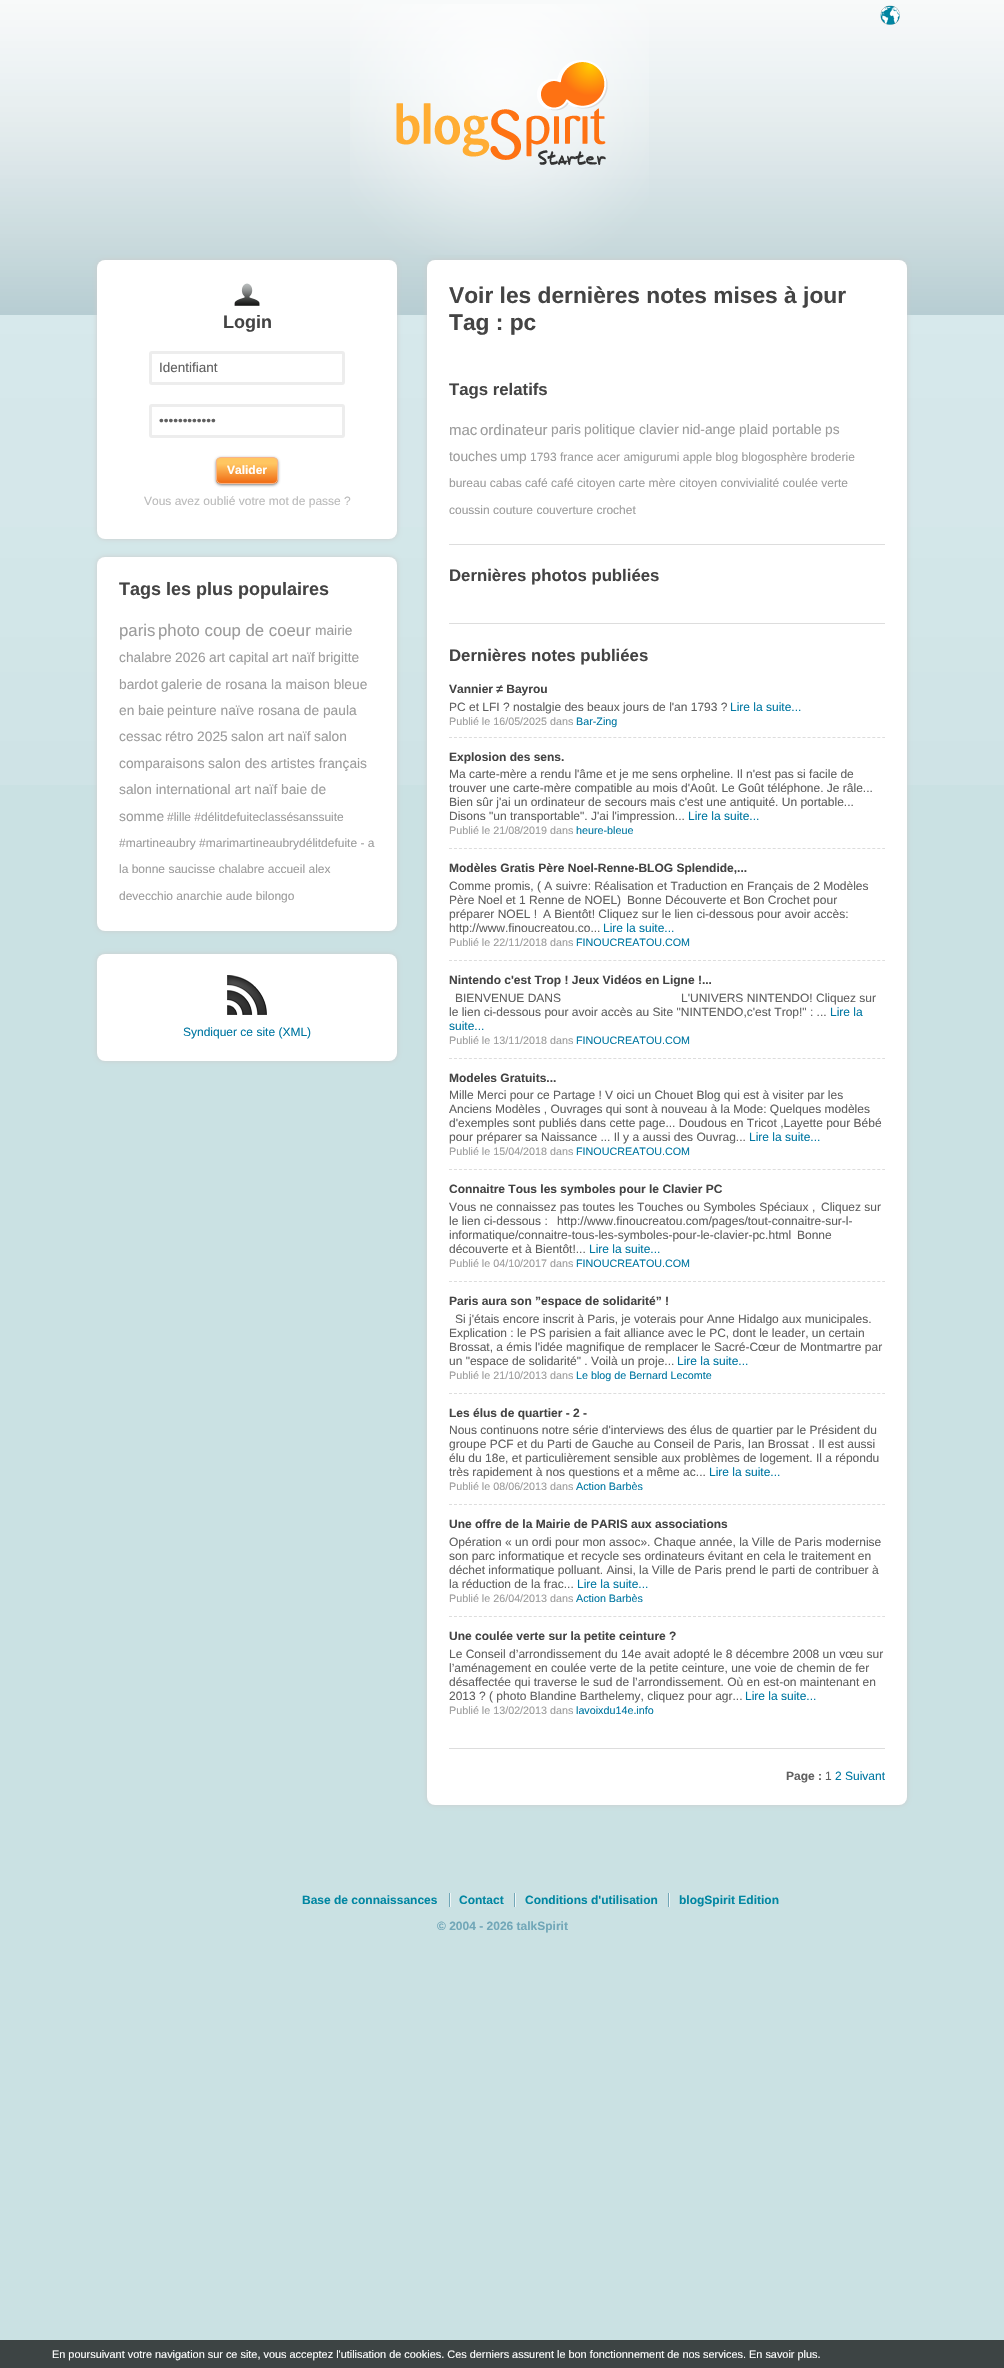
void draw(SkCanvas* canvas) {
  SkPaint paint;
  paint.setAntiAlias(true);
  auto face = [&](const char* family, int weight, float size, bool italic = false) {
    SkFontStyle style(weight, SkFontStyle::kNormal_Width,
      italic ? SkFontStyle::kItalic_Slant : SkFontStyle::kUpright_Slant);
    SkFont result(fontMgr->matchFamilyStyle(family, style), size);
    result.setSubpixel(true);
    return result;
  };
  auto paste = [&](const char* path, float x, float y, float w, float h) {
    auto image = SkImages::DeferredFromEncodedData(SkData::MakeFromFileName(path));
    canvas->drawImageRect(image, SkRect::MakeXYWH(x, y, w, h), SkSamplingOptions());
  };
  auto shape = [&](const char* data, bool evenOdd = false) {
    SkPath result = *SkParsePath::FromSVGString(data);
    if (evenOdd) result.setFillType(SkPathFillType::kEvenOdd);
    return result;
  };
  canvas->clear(0xffcae1e3);
  paste("img/1.png", 0, 0, 1004, 785);
  paint.setColor(0xffcccccc);
  paint.setMaskFilter(SkMaskFilter::MakeBlur(kNormal_SkBlurStyle, 2.5f));
  canvas->drawRoundRect(SkRect::MakeXYWH(97, 260, 300, 279), 8, 8, paint);
  paint.setMaskFilter(nullptr);
  paint.setMaskFilter(SkMaskFilter::MakeBlur(kNormal_SkBlurStyle, 2.5f));
  canvas->drawRoundRect(SkRect::MakeXYWH(427, 260, 480, 1545), 8, 8, paint);
  paint.setMaskFilter(nullptr);
  paste("img/2.png", 350, 4, 299, 251);
  paste("img/3.png", 880, 5, 20, 20);
  paste("img/4.png", 396, 60, 212, 105);
  paint.setColor(0xffffffff);
  canvas->drawRoundRect(SkRect::MakeXYWH(97, 260, 300, 279), 8, 8, paint);
  paste("img/5.png", 234, 283, 26, 23);
  paint.setStroke(true);
  paint.setStrokeWidth(3);
  paint.setColor(0xffededed);
  canvas->drawRoundRect(SkRect::MakeXYWH(150.5f, 352.5f, 193, 31), 1.5f, 1.5f, paint);
  canvas->drawRoundRect(SkRect::MakeXYWH(150.5f, 405.5f, 193, 31), 1.5f, 1.5f, paint);
  paint.setStroke(false);
  paint.setColor(0x80000000);
  paint.setMaskFilter(SkMaskFilter::MakeBlur(kNormal_SkBlurStyle, 1.5f));
  canvas->drawRoundRect(SkRect::MakeXYWH(216, 458, 62, 27), 5, 5, paint);
  paint.setMaskFilter(nullptr);
  canvas->save();
  canvas->clipPath(shape("M221 457H273C276 457 278 459 278 462V479C278 482 276 484 273 484H221C218 484 216 482 216 479V462C216 459 218 457 221 457Z"), true);
  {
    const SkColor colors[] = {0xfff17119, 0xffffc661};
    const float stops[] = {0.05f, 0.77f};
    const SkPoint ends[] = {{217, 483}, {217, 458}};
    paint.setShader(SkGradientShader::MakeLinear(ends, colors, stops, 2, SkTileMode::kClamp));
    paint.setAlpha(255);
  }
  canvas->drawRect(SkRect::MakeXYWH(216, 458, 62, 25), paint);
  canvas->restore();
  paint.setStroke(true);
  paint.setStrokeWidth(1);
  paint.setShader(nullptr);
  paint.setColor(0xfff8b386);
  canvas->drawRoundRect(SkRect::MakeXYWH(216.5f, 457.5f, 61, 26), 4.5f, 4.5f, paint);
  paint.setStroke(false);
  paint.setColor(0xffcccccc);
  paint.setMaskFilter(SkMaskFilter::MakeBlur(kNormal_SkBlurStyle, 2.5f));
  canvas->drawRoundRect(SkRect::MakeXYWH(97, 557, 300, 374), 8, 8, paint);
  paint.setMaskFilter(nullptr);
  paint.setColor(0xffffffff);
  canvas->drawRoundRect(SkRect::MakeXYWH(97, 557, 300, 374), 8, 8, paint);
  canvas->drawRoundRect(SkRect::MakeXYWH(427, 260, 480, 1545), 8, 8, paint);
  {
    const struct { float x, y, w, h; SkColor color; } items[] = {
      {449, 544, 436, 1, 0xffdddddd},
      {449, 623, 436, 1, 0xffdddddd},
      {449, 1748, 436, 1, 0xffdddddd},
    };
    for (auto [x, y, w, h, color] : items) {
      paint.setColor(color);
      canvas->drawRect(SkRect::MakeXYWH(x, y, w, h), paint);
    }
  }
  paint.setStroke(true);
  paint.setPathEffect(SkDashPathEffect::Make({{3, 1.98f}}, 0));
  canvas->drawPath(shape("M449 737.5H885"), paint);
  paint.setPathEffect(nullptr);
  paint.setPathEffect(SkDashPathEffect::Make({{3, 1.98f}}, 0));
  canvas->drawPath(shape("M449 848.5H885"), paint);
  paint.setPathEffect(nullptr);
  paint.setPathEffect(SkDashPathEffect::Make({{3, 1.98f}}, 0));
  canvas->drawPath(shape("M449 960.5H885"), paint);
  paint.setPathEffect(nullptr);
  paint.setPathEffect(SkDashPathEffect::Make({{3, 1.98f}}, 0));
  canvas->drawPath(shape("M449 1058.5H885"), paint);
  paint.setPathEffect(nullptr);
  paint.setPathEffect(SkDashPathEffect::Make({{3, 1.98f}}, 0));
  canvas->drawPath(shape("M449 1169.5H885"), paint);
  paint.setPathEffect(nullptr);
  paint.setPathEffect(SkDashPathEffect::Make({{3, 1.98f}}, 0));
  canvas->drawPath(shape("M449 1281.5H885"), paint);
  paint.setPathEffect(nullptr);
  paint.setPathEffect(SkDashPathEffect::Make({{3, 1.98f}}, 0));
  canvas->drawPath(shape("M449 1393.5H885"), paint);
  paint.setPathEffect(nullptr);
  paint.setPathEffect(SkDashPathEffect::Make({{3, 1.98f}}, 0));
  canvas->drawPath(shape("M449 1504.5H885"), paint);
  paint.setPathEffect(nullptr);
  paint.setPathEffect(SkDashPathEffect::Make({{3, 1.98f}}, 0));
  canvas->drawPath(shape("M449 1616.5H885"), paint);
  paint.setPathEffect(nullptr);
  paint.setStroke(false);
  paint.setColor(0xffcccccc);
  paint.setMaskFilter(SkMaskFilter::MakeBlur(kNormal_SkBlurStyle, 2.5f));
  canvas->drawRoundRect(SkRect::MakeXYWH(97, 954, 300, 107), 8, 8, paint);
  paint.setMaskFilter(nullptr);
  paint.setColor(0xffffffff);
  canvas->drawRoundRect(SkRect::MakeXYWH(97, 954, 300, 107), 8, 8, paint);
  paste("img/6.png", 227, 975, 40, 40);
  {
    const struct { float x, y, w, h; SkColor color; } items[] = {
      {449, 1893, 1, 14, 0xff71a7b8},
      {514, 1893, 1, 14, 0xff71a7b8},
      {450, 1893, 1, 14, 0xffeff6f7},
      {668, 1893, 1, 14, 0xff71a7b8},
      {515, 1893, 1, 14, 0xffeff6f7},
      {669, 1893, 1, 14, 0xffeff6f7},
      {0, 2340, 1004, 28, 0xff3d4444},
    };
    for (auto [x, y, w, h, color] : items) {
      paint.setColor(color);
      canvas->drawRect(SkRect::MakeXYWH(x, y, w, h), paint);
    }
  }
  auto f0 = face("Liberation Sans", 700, 18);
  paint.setColor(0xff444444);
  canvas->drawString("Login", 223, 328, f0, paint);
  auto f1 = face("Liberation Sans", 400, 13.5f);
  paint.setColor(0xff606060);
  canvas->drawString("Identifiant", 159, 372, f1, paint);
  canvas->drawString("••••••••••••", 159, 425, f1, paint);
  auto f2 = face("Liberation Sans", 700, 12);
  paint.setColor(0xffffffff);
  canvas->drawString("Valider", 227, 474, f2, paint);
  auto f3 = face("Liberation Sans", 400, 12);
  paint.setColor(0xffbbbbbb);
  canvas->drawString("Vous avez oublié votre mot de passe ?", 144, 505, f3, paint);
  paint.setColor(0xff444444);
  canvas->drawString("Tags les plus populaires", 119, 595, f0, paint);
  auto f4 = face("Liberation Sans", 400, 16.75f);
  paint.setColor(0xff9c9c9c);
  canvas->drawString("paris", 119, 636, f4, paint);
  canvas->drawString("photo coup de coeur", 158, 636, f4, paint);
  auto f5 = face("Liberation Sans", 400, 13.75f);
  {
    const struct { const char* s; float x, y; } items[] = {
      {"mairie", 315, 635},
      {"chalabre", 119, 662},
      {"2026", 175, 662},
      {"art capital", 209, 662},
      {"art naïf", 272, 662},
      {"brigitte", 318, 662},
      {"bardot", 119, 689},
      {"galerie de rosana", 161, 689},
      {"la maison bleue", 271, 689},
      {"en baie", 119, 715},
      {"peinture naïve", 167, 715},
      {"rosana de paula", 258, 715},
      {"cessac", 119, 741},
      {"rétro 2025", 165, 741},
      {"salon art naïf", 231, 741},
      {"salon", 314, 741},
      {"comparaisons", 119, 768},
      {"salon des artistes français", 208, 768},
      {"salon international art naïf baie de", 119, 794},
      {"somme", 119, 821},
    };
    for (auto [s, x, y] : items) {
      canvas->drawString(s, x, y, f5, paint);
    }
  }
  {
    const struct { const char* s; float x, y; } items[] = {
      {"#lille #délitdefuiteclassésanssuite", 167, 821},
      {"#martineaubry #marimartineaubrydélitdefuite - a", 119, 847},
      {"la bonne saucisse chalabre accueil alex", 119, 873},
      {"devecchio anarchie aude bilongo", 119, 900},
    };
    for (auto [s, x, y] : items) {
      canvas->drawString(s, x, y, f3, paint);
    }
  }
  auto f6 = face("Liberation Sans", 700, 22.75f);
  paint.setColor(0xff444444);
  canvas->drawString("Voir les dernières notes mises à jour", 449, 303, f6, paint);
  canvas->drawString("Tag : pc", 449, 330, f6, paint);
  auto f7 = face("Liberation Sans", 700, 16.75f);
  canvas->drawString("Tags relatifs", 449, 395, f7, paint);
  auto f8 = face("Liberation Sans", 400, 15);
  paint.setColor(0xff9c9c9c);
  canvas->drawString("mac", 449, 435, f8, paint);
  canvas->drawString("ordinateur", 480, 435, f8, paint);
  {
    const struct { const char* s; float x, y; } items[] = {
      {"paris", 551, 434},
      {"politique", 584, 434},
      {"clavier", 639, 434},
      {"nid-ange", 682, 434},
      {"plaid", 739, 434},
      {"portable", 772, 434},
      {"ps", 825, 434},
      {"touches", 449, 461},
      {"ump", 500, 461},
    };
    for (auto [s, x, y] : items) {
      canvas->drawString(s, x, y, f5, paint);
    }
  }
  {
    const struct { const char* s; float x, y; } items[] = {
      {"1793 france acer amigurumi apple blog blogosphère broderie", 530, 461},
      {"bureau cabas café café citoyen carte mère citoyen convivialité coulée verte", 449, 487},
      {"coussin couture couverture crochet", 449, 514},
    };
    for (auto [s, x, y] : items) {
      canvas->drawString(s, x, y, f3, paint);
    }
  }
  paint.setColor(0xff444444);
  canvas->drawString("Dernières photos publiées", 449, 581, f7, paint);
  canvas->drawString("Dernières notes publiées", 449, 661, f7, paint);
  canvas->drawString("Vannier ≠ Bayrou", 449, 693, f2, paint);
  paint.setColor(0xff606060);
  canvas->drawString("PC et LFI ? nostalgie des beaux jours de l'an 1793 ?", 449, 711, f3, paint);
  paint.setColor(0xff0077a2);
  canvas->drawString("Lire la suite...", 730, 711, f3, paint);
  auto f9 = face("Liberation Sans", 400, 10.75f);
  paint.setColor(0xff9c9c9c);
  canvas->drawString("Publié le 16/05/2025 dans", 449, 725, f9, paint);
  paint.setColor(0xff0077a2);
  canvas->drawString("Bar-Zing", 576, 725, f9, paint);
  paint.setColor(0xff444444);
  canvas->drawString("Explosion des sens.", 449, 761, f2, paint);
  paint.setColor(0xff606060);
  {
    const struct { const char* s; float x, y; } items[] = {
      {"Ma carte-mère a rendu l'âme et je me sens orpheline. Il n'est pas si facile de", 449, 778},
      {"trouver une carte-mère compatible au mois d'Août. Le Goût téléphone. Je râle...", 449, 792},
      {"Bien sûr j'ai un ordinateur de secours mais c'est une antiquité. Un portable...", 449, 806},
      {"Disons \"un transportable\". J'ai l'impression...", 449, 820},
    };
    for (auto [s, x, y] : items) {
      canvas->drawString(s, x, y, f3, paint);
    }
  }
  paint.setColor(0xff0077a2);
  canvas->drawString("Lire la suite...", 688, 820, f3, paint);
  paint.setColor(0xff9c9c9c);
  canvas->drawString("Publié le 21/08/2019 dans", 449, 834, f9, paint);
  paint.setColor(0xff0077a2);
  canvas->drawString("heure-bleue", 576, 834, f9, paint);
  paint.setColor(0xff444444);
  canvas->drawString("Modèles Gratis Père Noel-Renne-BLOG Splendide,...", 449, 872, f2, paint);
  paint.setColor(0xff606060);
  {
    const struct { const char* s; float x, y; } items[] = {
      {"Comme promis, ( A suivre: Réalisation et Traduction en Français de 2 Modèles", 449, 890},
      {"Père Noel et 1 Renne de NOEL)", 449, 904},
      {"Bonne Découverte et Bon Crochet pour", 627, 904},
      {"préparer NOEL !", 449, 918},
      {"A Bientôt! Cliquez sur le lien ci-dessous pour avoir accès:", 543, 918},
      {"http://www.finoucreatou.co...", 449, 932},
    };
    for (auto [s, x, y] : items) {
      canvas->drawString(s, x, y, f3, paint);
    }
  }
  paint.setColor(0xff0077a2);
  canvas->drawString("Lire la suite...", 603, 932, f3, paint);
  paint.setColor(0xff9c9c9c);
  canvas->drawString("Publié le 22/11/2018 dans", 449, 946, f9, paint);
  paint.setColor(0xff0077a2);
  canvas->drawString("FINOUCREATOU.COM", 576, 946, f9, paint);
  paint.setColor(0xff444444);
  canvas->drawString("Nintendo c'est Trop ! Jeux Vidéos en Ligne !...", 449, 984, f2, paint);
  paint.setColor(0xff606060);
  {
    const struct { const char* s; float x, y; } items[] = {
      {"BIENVENUE DANS", 455, 1002},
      {"L'UNIVERS NINTENDO! Cliquez sur", 681, 1002},
      {"le lien ci-dessous pour avoir accès au Site \"NINTENDO,c'est Trop!\" : ...", 449, 1016},
    };
    for (auto [s, x, y] : items) {
      canvas->drawString(s, x, y, f3, paint);
    }
  }
  paint.setColor(0xff0077a2);
  canvas->drawString("Lire la", 830, 1016, f3, paint);
  canvas->drawString("suite...", 449, 1030, f3, paint);
  paint.setColor(0xff9c9c9c);
  canvas->drawString("Publié le 13/11/2018 dans", 449, 1044, f9, paint);
  paint.setColor(0xff0077a2);
  canvas->drawString("FINOUCREATOU.COM", 576, 1044, f9, paint);
  paint.setColor(0xff444444);
  canvas->drawString("Modeles Gratuits...", 449, 1082, f2, paint);
  paint.setColor(0xff606060);
  {
    const struct { const char* s; float x, y; } items[] = {
      {"Mille Merci pour ce Partage ! V oici un Chouet Blog qui est à visiter par les", 449, 1099},
      {"Anciens Modèles , Ouvrages qui sont à nouveau à la Mode: Quelques modèles", 449, 1113},
      {"d'exemples sont publiés dans cette page... Doudous en Tricot ,Layette pour Bébé", 449, 1127},
      {"pour préparer sa Naissance ... Il y a aussi des Ouvrag...", 449, 1141},
    };
    for (auto [s, x, y] : items) {
      canvas->drawString(s, x, y, f3, paint);
    }
  }
  paint.setColor(0xff0077a2);
  canvas->drawString("Lire la suite...", 749, 1141, f3, paint);
  paint.setColor(0xff9c9c9c);
  canvas->drawString("Publié le 15/04/2018 dans", 449, 1155, f9, paint);
  paint.setColor(0xff0077a2);
  canvas->drawString("FINOUCREATOU.COM", 576, 1155, f9, paint);
  paint.setColor(0xff444444);
  canvas->drawString("Connaitre Tous les symboles pour le Clavier PC", 449, 1193, f2, paint);
  paint.setColor(0xff606060);
  {
    const struct { const char* s; float x, y; } items[] = {
      {"Vous ne connaissez pas toutes les Touches ou Symboles Spéciaux ,", 449, 1211},
      {"Cliquez sur", 821, 1211},
      {"le lien ci-dessous :", 449, 1225},
      {"http://www.finoucreatou.com/pages/tout-connaitre-sur-l-", 557, 1225},
      {"informatique/connaitre-tous-les-symboles-pour-le-clavier-pc.html", 449, 1239},
      {"Bonne", 797, 1239},
      {"découverte et à Bientôt!...", 449, 1253},
    };
    for (auto [s, x, y] : items) {
      canvas->drawString(s, x, y, f3, paint);
    }
  }
  paint.setColor(0xff0077a2);
  canvas->drawString("Lire la suite...", 589, 1253, f3, paint);
  paint.setColor(0xff9c9c9c);
  canvas->drawString("Publié le 04/10/2017 dans", 449, 1267, f9, paint);
  paint.setColor(0xff0077a2);
  canvas->drawString("FINOUCREATOU.COM", 576, 1267, f9, paint);
  paint.setColor(0xff444444);
  canvas->drawString("Paris aura son ”espace de solidarité” !", 449, 1305, f2, paint);
  paint.setColor(0xff606060);
  {
    const struct { const char* s; float x, y; } items[] = {
      {"Si j'étais encore inscrit à Paris, je voterais pour Anne Hidalgo aux municipales.", 455, 1323},
      {"Explication : le PS parisien a fait alliance avec le PC, dont le leader, un certain", 449, 1337},
      {"Brossat, a émis l'idée magnifique de remplacer le Sacré-Cœur de Montmartre par", 449, 1351},
      {"un \"espace de solidarité\" . Voilà un proje...", 449, 1365},
    };
    for (auto [s, x, y] : items) {
      canvas->drawString(s, x, y, f3, paint);
    }
  }
  paint.setColor(0xff0077a2);
  canvas->drawString("Lire la suite...", 677, 1365, f3, paint);
  paint.setColor(0xff9c9c9c);
  canvas->drawString("Publié le 21/10/2013 dans", 449, 1379, f9, paint);
  paint.setColor(0xff0077a2);
  canvas->drawString("Le blog de Bernard Lecomte", 576, 1379, f9, paint);
  paint.setColor(0xff444444);
  canvas->drawString("Les élus de quartier - 2 -", 449, 1417, f2, paint);
  paint.setColor(0xff606060);
  {
    const struct { const char* s; float x, y; } items[] = {
      {"Nous continuons notre série d'interviews des élus de quartier par le Président du", 449, 1434},
      {"groupe PCF et du Parti de Gauche au Conseil de Paris, Ian Brossat . Il est aussi", 449, 1448},
      {"élu du 18e, et particulièrement sensible aux problèmes de logement. Il a répondu", 449, 1462},
      {"très rapidement à nos questions et a même ac...", 449, 1476},
    };
    for (auto [s, x, y] : items) {
      canvas->drawString(s, x, y, f3, paint);
    }
  }
  paint.setColor(0xff0077a2);
  canvas->drawString("Lire la suite...", 709, 1476, f3, paint);
  paint.setColor(0xff9c9c9c);
  canvas->drawString("Publié le 08/06/2013 dans", 449, 1490, f9, paint);
  paint.setColor(0xff0077a2);
  canvas->drawString("Action Barbès", 576, 1490, f9, paint);
  paint.setColor(0xff444444);
  canvas->drawString("Une offre de la Mairie de PARIS aux associations", 449, 1528, f2, paint);
  paint.setColor(0xff606060);
  {
    const struct { const char* s; float x, y; } items[] = {
      {"Opération « un ordi pour mon assoc». Chaque année, la Ville de Paris modernise", 449, 1546},
      {"son parc informatique et recycle ses ordinateurs évitant en cela le traitement en", 449, 1560},
      {"déchet informatique polluant. Ainsi, la Ville de Paris prend le parti de contribuer à", 449, 1574},
      {"la réduction de la frac...", 449, 1588},
    };
    for (auto [s, x, y] : items) {
      canvas->drawString(s, x, y, f3, paint);
    }
  }
  paint.setColor(0xff0077a2);
  canvas->drawString("Lire la suite...", 577, 1588, f3, paint);
  paint.setColor(0xff9c9c9c);
  canvas->drawString("Publié le 26/04/2013 dans", 449, 1602, f9, paint);
  paint.setColor(0xff0077a2);
  canvas->drawString("Action Barbès", 576, 1602, f9, paint);
  paint.setColor(0xff444444);
  canvas->drawString("Une coulée verte sur la petite ceinture ?", 449, 1640, f2, paint);
  paint.setColor(0xff606060);
  {
    const struct { const char* s; float x, y; } items[] = {
      {"Le Conseil d’arrondissement du 14e avait adopté le 8 décembre 2008 un vœu sur", 449, 1658},
      {"l’aménagement en coulée verte de la petite ceinture, une voie de chemin de fer", 449, 1672},
      {"désaffectée qui traverse le sud de l’arrondissement. Où en est-on maintenant en", 449, 1686},
      {"2013 ? ( photo Blandine Barthelemy, cliquez pour agr...", 449, 1700},
    };
    for (auto [s, x, y] : items) {
      canvas->drawString(s, x, y, f3, paint);
    }
  }
  paint.setColor(0xff0077a2);
  canvas->drawString("Lire la suite...", 745, 1700, f3, paint);
  paint.setColor(0xff9c9c9c);
  canvas->drawString("Publié le 13/02/2013 dans", 449, 1714, f9, paint);
  paint.setColor(0xff0077a2);
  canvas->drawString("lavoixdu14e.info", 576, 1714, f9, paint);
  paint.setColor(0xff606060);
  canvas->drawString("Page :", 786, 1780, f2, paint);
  canvas->drawString("1", 825, 1780, f3, paint);
  paint.setColor(0xff0077a2);
  canvas->drawString("2 Suivant", 835, 1780, f3, paint);
  canvas->drawString("Syndiquer ce site (XML)", 183, 1036, f3, paint);
  paint.setColor(0xff0086a2);
  {
    const struct { const char* s; float x, y; } items[] = {
      {"Base de connaissances", 302, 1904},
      {"Contact", 459, 1904},
      {"Conditions d'utilisation", 525, 1904},
      {"blogSpirit Edition", 679, 1904},
    };
    for (auto [s, x, y] : items) {
      canvas->drawString(s, x, y, f2, paint);
    }
  }
  paint.setColor(0xff71a7b8);
  canvas->drawString("© 2004 - 2026 talkSpirit", 437, 1930, f2, paint);
  auto f10 = face("Liberation Sans", 400, 10.9f);
  paint.setColor(0xffffffff);
  canvas->drawString("En poursuivant votre navigation sur ce site, vous acceptez l'utilisation de cookies. Ces derniers assurent le bon fonctionnement de nos services. En savoir plus.", 52, 2358, f10, paint);
}
